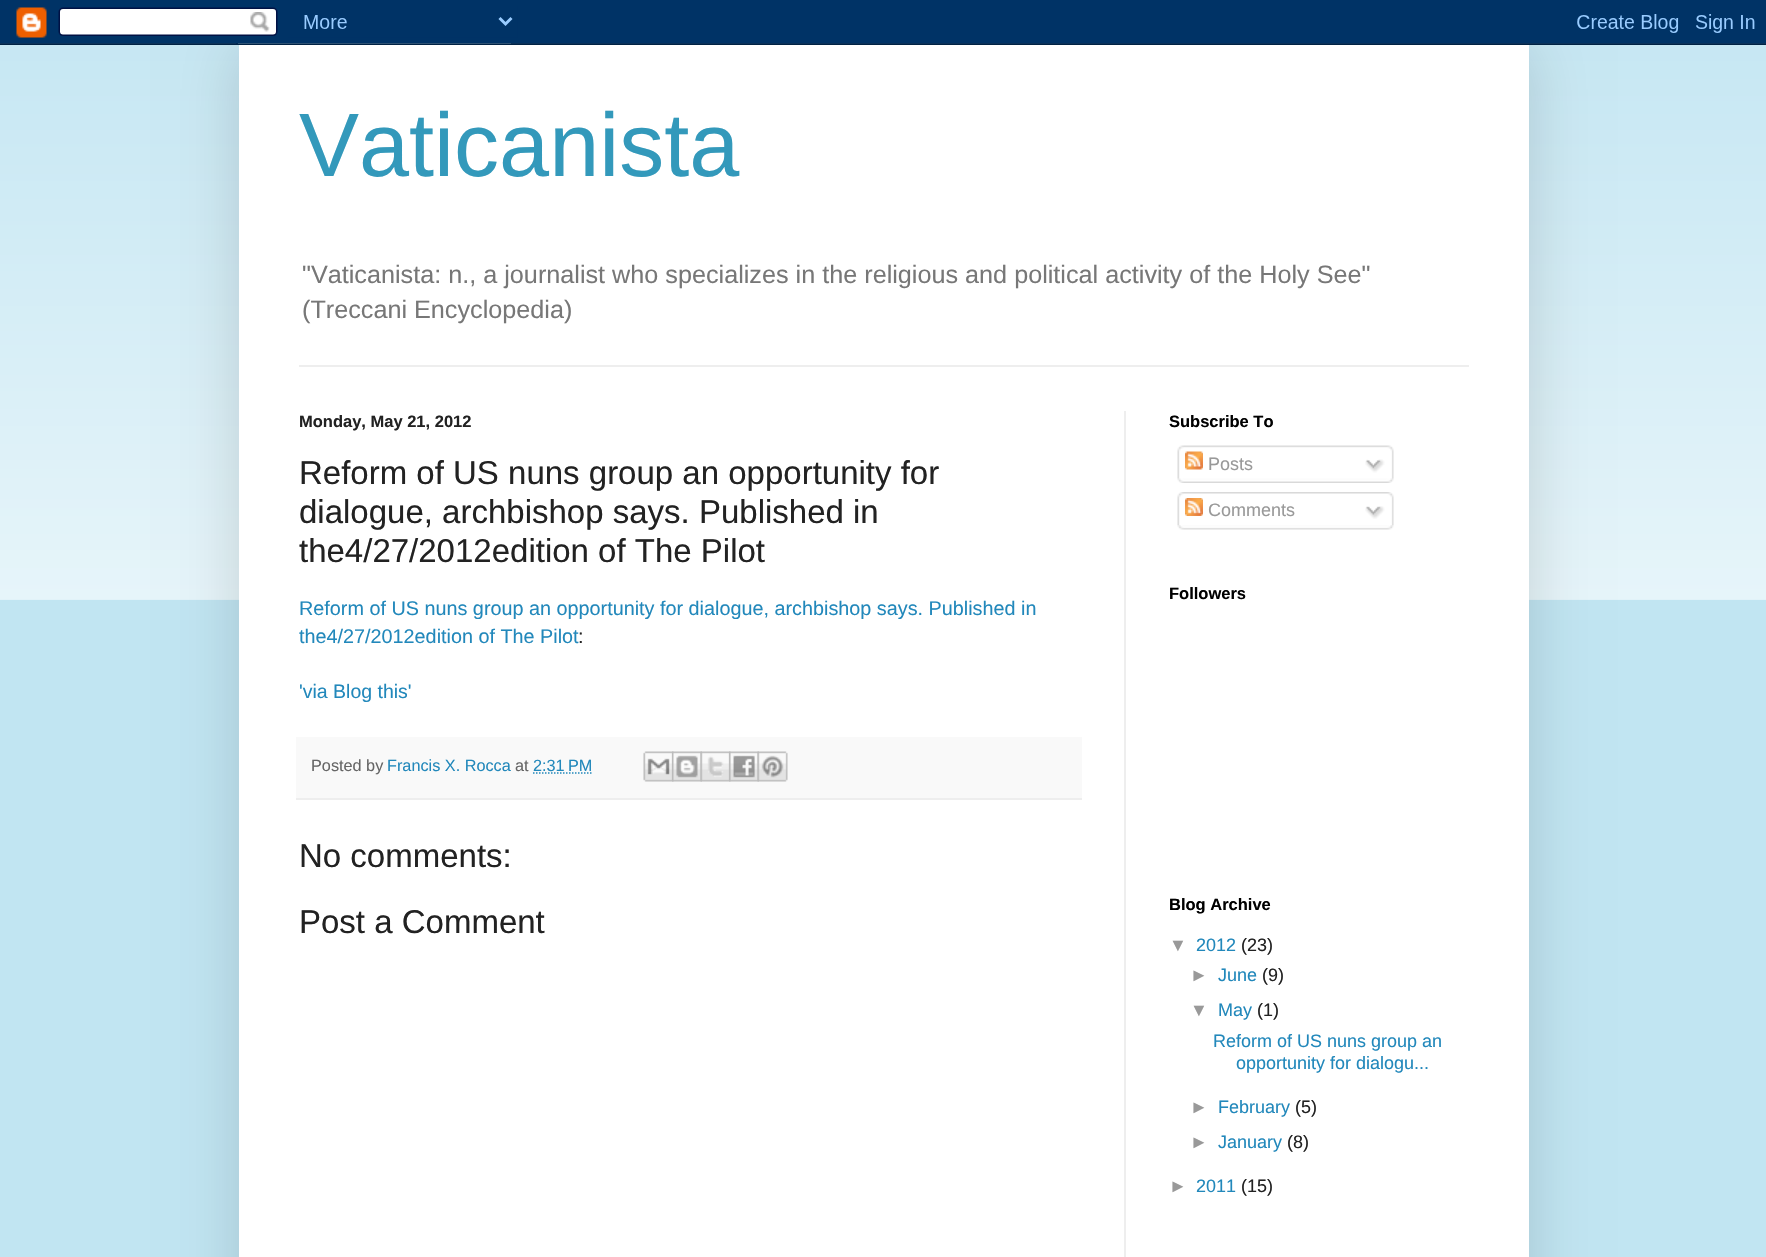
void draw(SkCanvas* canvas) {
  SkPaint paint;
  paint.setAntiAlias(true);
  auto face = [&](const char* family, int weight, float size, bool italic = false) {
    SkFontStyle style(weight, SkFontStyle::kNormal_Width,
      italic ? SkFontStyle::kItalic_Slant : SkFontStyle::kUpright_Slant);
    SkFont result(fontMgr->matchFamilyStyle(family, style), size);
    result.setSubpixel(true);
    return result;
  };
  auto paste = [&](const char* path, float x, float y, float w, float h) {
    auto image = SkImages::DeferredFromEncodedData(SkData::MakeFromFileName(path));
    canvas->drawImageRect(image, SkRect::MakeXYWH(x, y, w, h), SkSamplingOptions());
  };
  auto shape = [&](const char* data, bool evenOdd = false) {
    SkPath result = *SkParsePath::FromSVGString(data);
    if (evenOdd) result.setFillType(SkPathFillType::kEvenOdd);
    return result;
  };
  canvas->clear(0xffc1e5f2);
  paste("img/2.png", 0, 43, 1766, 557);
  paint.setColor(0x26000000);
  paint.setMaskFilter(SkMaskFilter::MakeBlur(kNormal_SkBlurStyle, 30));
  canvas->drawRect(SkRect::MakeXYWH(239, 45, 1290, 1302), paint);
  paint.setMaskFilter(nullptr);
  paste("img/1.png", 0, 0, 1766, 45);
  {
    const struct { float x, y, w, h; SkColor color; } items[] = {
      {239, 45, 1290, 1212, 0xffffffff},
      {299, 365, 1170, 2, 0xffeeeeee},
      {1124, 411, 2, 846, 0xffeeeeee},
      {296, 737, 786, 61, 0xfff9f9f9},
      {296, 798, 786, 2, 0xffeeeeee},
    };
    for (auto [x, y, w, h, color] : items) {
      paint.setColor(color);
      canvas->drawRect(SkRect::MakeXYWH(x, y, w, h), paint);
    }
  }
  paint.setStroke(true);
  paint.setStrokeWidth(1.5f);
  paint.setColor(0xff2288bb);
  paint.setPathEffect(SkDashPathEffect::Make({{1.5f, 1.5f}}, 0));
  canvas->drawPath(shape("M533 773H592"), paint);
  paint.setPathEffect(nullptr);
  paste("img/3.png", 643, 751, 31, 31);
  paste("img/4.png", 672, 751, 30, 31);
  paste("img/5.png", 700, 751, 31, 31);
  paste("img/6.png", 729, 751, 30, 31);
  paste("img/7.png", 757, 751, 31, 31);
  paste("img/8.png", 1177, 445, 217, 34);
  paste("img/9.png", 1185, 451, 18, 19);
  paste("img/10.png", 1365, 459, 20, 14);
  paste("img/11.png", 1177, 478, 217, 5);
  paste("img/12.png", 1177, 492, 217, 33);
  paste("img/13.png", 1185, 498, 18, 18);
  paste("img/14.png", 1365, 506, 20, 13);
  paste("img/15.png", 1177, 525, 217, 5);
  auto f0 = face("Liberation Sans", 400, 90);
  paint.setStroke(false);
  paint.setColor(0xff3399bb);
  canvas->drawString("Vaticanista", 299, 176, f0, paint);
  auto f1 = face("Liberation Sans", 400, 25.2f);
  paint.setColor(0xff777777);
  canvas->drawString("\"Vaticanista: n., a journalist who specializes in the religious and political activity of the Holy See\"", 302, 283, f1, paint);
  canvas->drawString("(Treccani Encyclopedia)", 302, 318, f1, paint);
  auto f2 = face("Liberation Sans", 700, 16.5f);
  paint.setColor(0xff222222);
  canvas->drawString("Monday, May 21, 2012", 299, 427, f2, paint);
  auto f3 = face("Liberation Sans", 400, 33);
  {
    const struct { const char* s; float x, y; } items[] = {
      {"Reform of US nuns group an opportunity for", 299, 484},
      {"dialogue, archbishop says. Published in", 299, 523},
      {"the4/27/2012edition of The Pilot", 299, 562},
    };
    for (auto [s, x, y] : items) {
      canvas->drawString(s, x, y, f3, paint);
    }
  }
  auto f4 = face("Liberation Sans", 400, 19.8f);
  paint.setColor(0xff2288bb);
  canvas->drawString("Reform of US nuns group an opportunity for dialogue, archbishop says. Published in", 299, 615, f4, paint);
  canvas->drawString("the4/27/2012edition of The Pilot", 299, 643, f4, paint);
  paint.setColor(0xff222222);
  canvas->drawString(":", 578, 643, f4, paint);
  auto f5 = face("Liberation Sans", 400, 19.5f);
  paint.setColor(0xff2288bb);
  canvas->drawString("'via Blog this'", 299, 698, f5, paint);
  auto f6 = face("Liberation Sans", 400, 16.25f);
  paint.setColor(0xff666666);
  canvas->drawString("Posted by", 311, 771, f6, paint);
  paint.setColor(0xff2288bb);
  canvas->drawString("Francis X. Rocca", 387, 771, f6, paint);
  paint.setColor(0xff666666);
  canvas->drawString("at", 515, 771, f6, paint);
  paint.setColor(0xff2288bb);
  canvas->drawString("2:31 PM", 533, 771, f6, paint);
  paint.setColor(0xff222222);
  canvas->drawString("No comments:", 299, 867, f3, paint);
  canvas->drawString("Post a Comment", 299, 933, f3, paint);
  paint.setColor(0xff000000);
  canvas->drawString("Subscribe To", 1169, 427, f2, paint);
  auto f7 = face("Liberation Sans", 400, 18);
  paint.setColor(0xff999999);
  canvas->drawString("Posts", 1208, 470, f7, paint);
  canvas->drawString("Comments", 1208, 516, f7, paint);
  paint.setColor(0xff000000);
  canvas->drawString("Followers", 1169, 599, f2, paint);
  canvas->drawString("Blog Archive", 1169, 910, f2, paint);
  paint.setColor(0xff999999);
  canvas->drawString("▼", 1169, 951, f7, paint);
  paint.setColor(0xff2288bb);
  canvas->drawString("2012", 1196, 951, f7, paint);
  paint.setColor(0xff222222);
  canvas->drawString("(23)", 1241, 951, f7, paint);
  paint.setColor(0xff999999);
  canvas->drawString("►", 1190, 981, f7, paint);
  paint.setColor(0xff2288bb);
  canvas->drawString("June", 1218, 981, f7, paint);
  paint.setColor(0xff222222);
  canvas->drawString("(9)", 1262, 981, f7, paint);
  paint.setColor(0xff999999);
  canvas->drawString("▼", 1190, 1016, f7, paint);
  paint.setColor(0xff2288bb);
  canvas->drawString("May", 1218, 1016, f7, paint);
  paint.setColor(0xff222222);
  canvas->drawString("(1)", 1257, 1016, f7, paint);
  paint.setColor(0xff2288bb);
  canvas->drawString("Reform of US nuns group an", 1213, 1047, f7, paint);
  canvas->drawString("opportunity for dialogu...", 1236, 1069, f7, paint);
  paint.setColor(0xff999999);
  canvas->drawString("►", 1190, 1113, f7, paint);
  paint.setColor(0xff2288bb);
  canvas->drawString("February", 1218, 1113, f7, paint);
  paint.setColor(0xff222222);
  canvas->drawString("(5)", 1295, 1113, f7, paint);
  paint.setColor(0xff999999);
  canvas->drawString("►", 1190, 1148, f7, paint);
  paint.setColor(0xff2288bb);
  canvas->drawString("January", 1218, 1148, f7, paint);
  paint.setColor(0xff222222);
  canvas->drawString("(8)", 1287, 1148, f7, paint);
  paint.setColor(0xff999999);
  canvas->drawString("►", 1169, 1192, f7, paint);
  paint.setColor(0xff2288bb);
  canvas->drawString("2011", 1196, 1192, f7, paint);
  paint.setColor(0xff222222);
  canvas->drawString("(15)", 1241, 1192, f7, paint);
}
